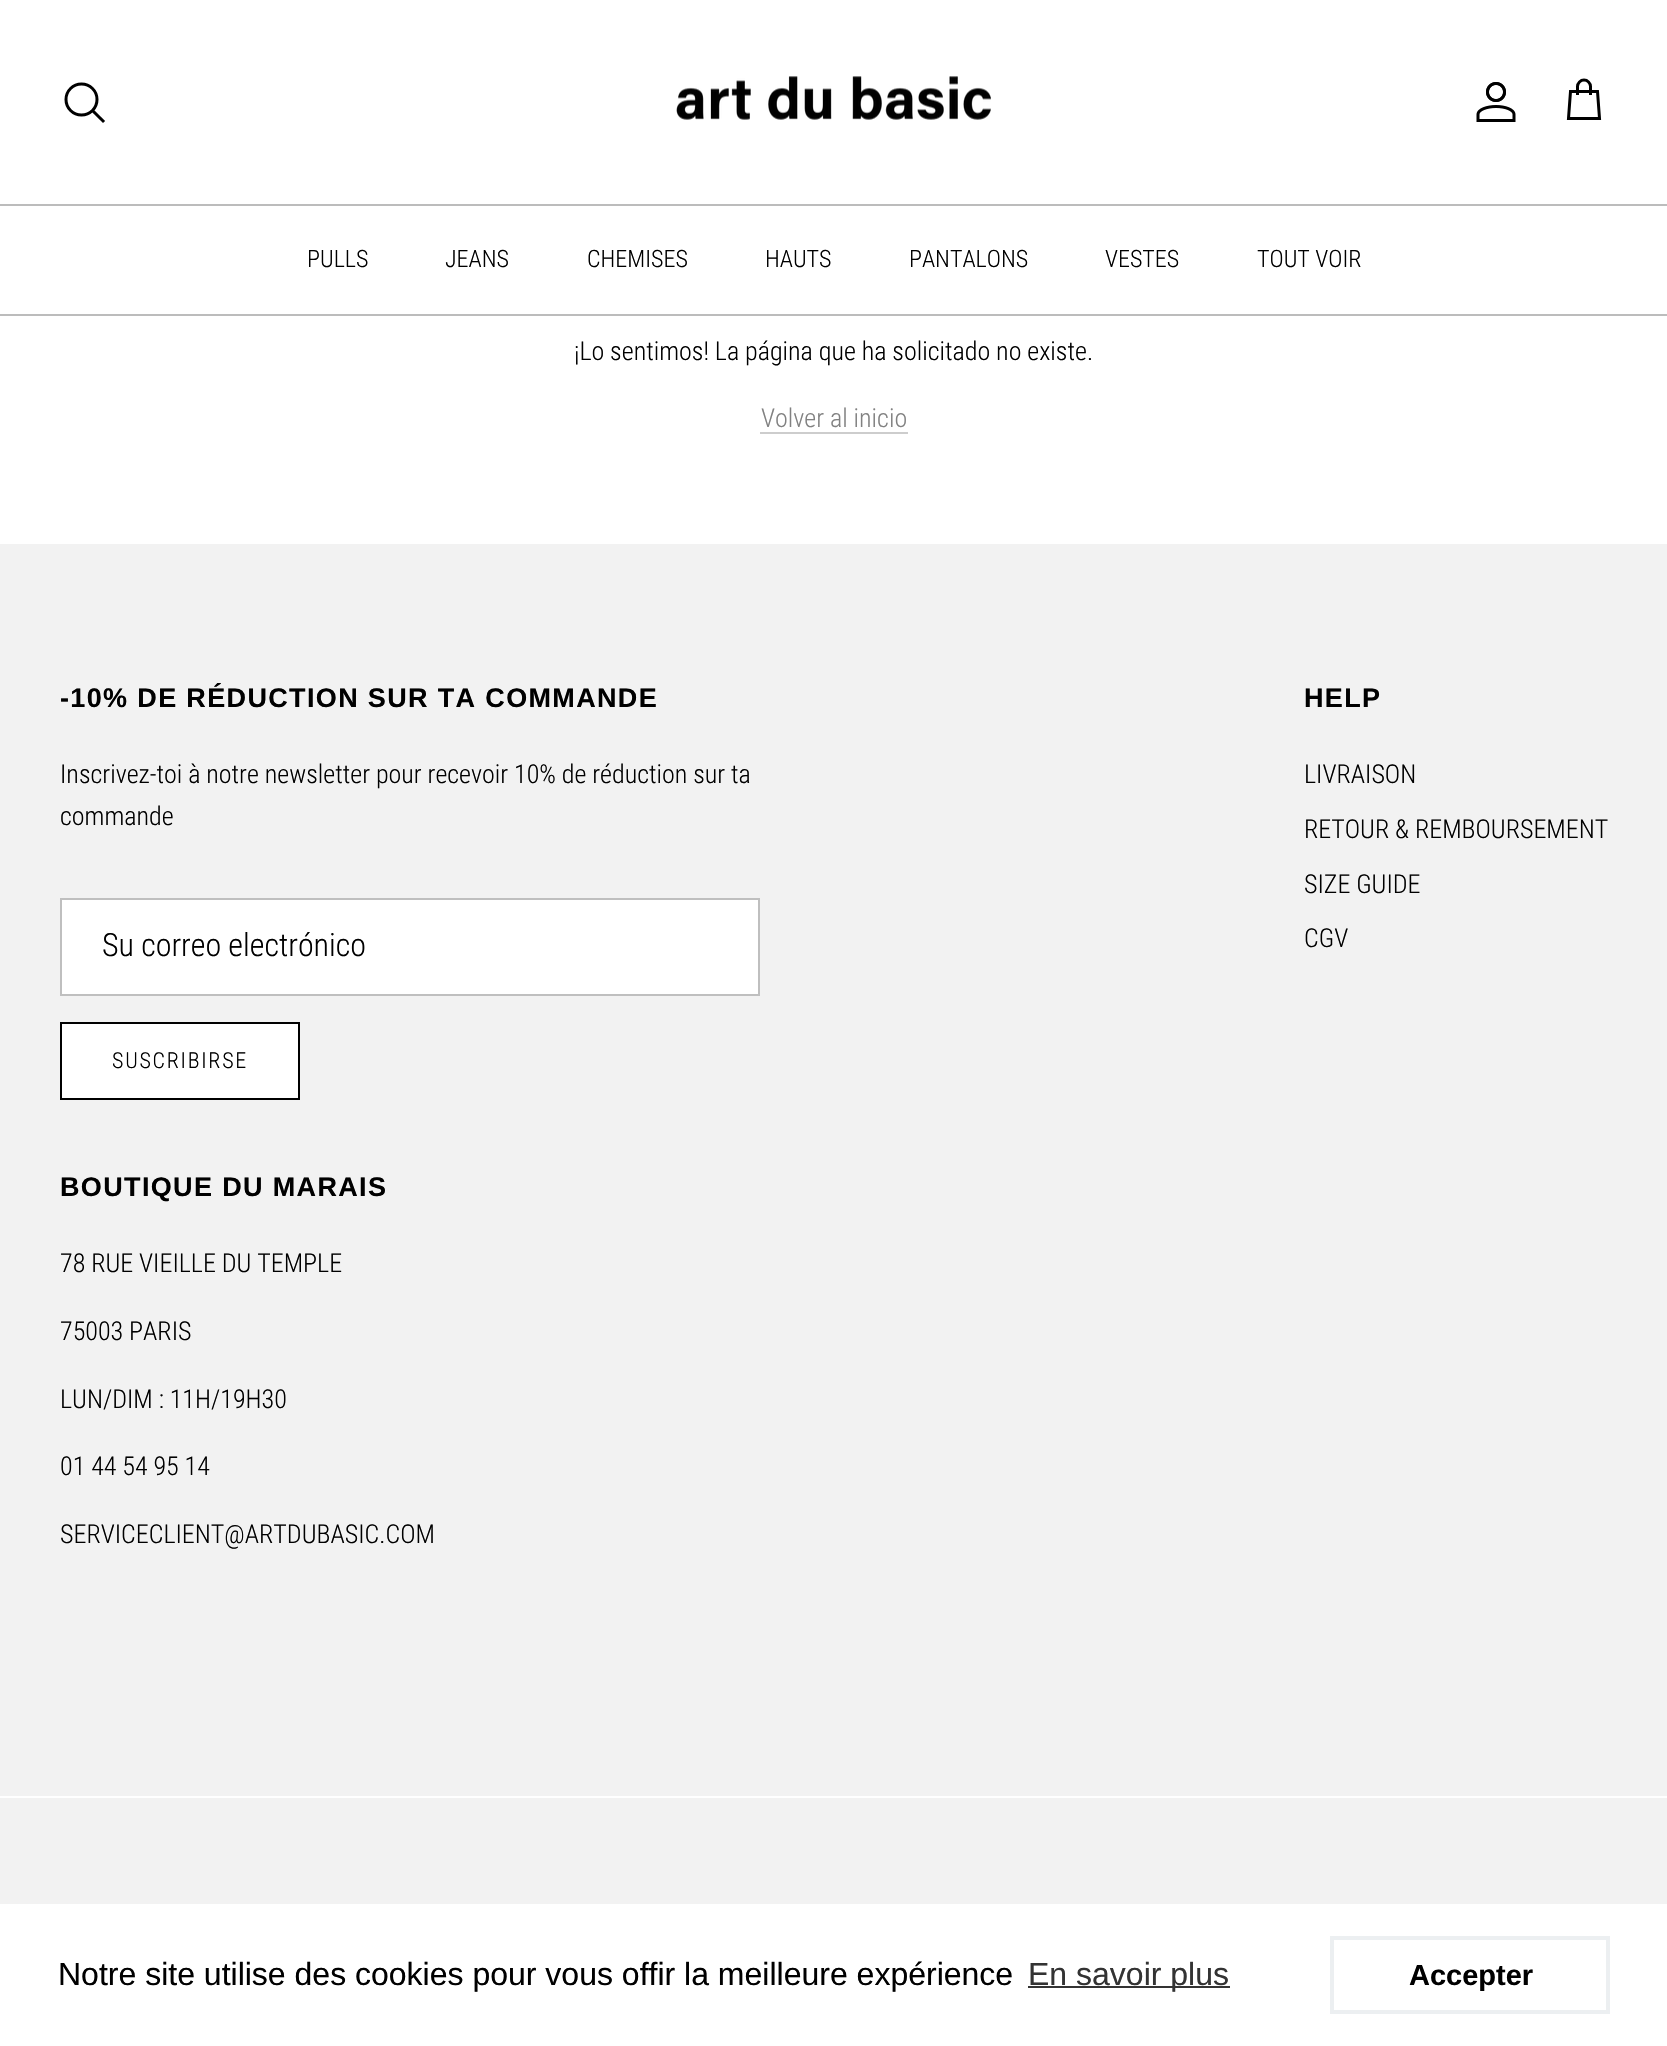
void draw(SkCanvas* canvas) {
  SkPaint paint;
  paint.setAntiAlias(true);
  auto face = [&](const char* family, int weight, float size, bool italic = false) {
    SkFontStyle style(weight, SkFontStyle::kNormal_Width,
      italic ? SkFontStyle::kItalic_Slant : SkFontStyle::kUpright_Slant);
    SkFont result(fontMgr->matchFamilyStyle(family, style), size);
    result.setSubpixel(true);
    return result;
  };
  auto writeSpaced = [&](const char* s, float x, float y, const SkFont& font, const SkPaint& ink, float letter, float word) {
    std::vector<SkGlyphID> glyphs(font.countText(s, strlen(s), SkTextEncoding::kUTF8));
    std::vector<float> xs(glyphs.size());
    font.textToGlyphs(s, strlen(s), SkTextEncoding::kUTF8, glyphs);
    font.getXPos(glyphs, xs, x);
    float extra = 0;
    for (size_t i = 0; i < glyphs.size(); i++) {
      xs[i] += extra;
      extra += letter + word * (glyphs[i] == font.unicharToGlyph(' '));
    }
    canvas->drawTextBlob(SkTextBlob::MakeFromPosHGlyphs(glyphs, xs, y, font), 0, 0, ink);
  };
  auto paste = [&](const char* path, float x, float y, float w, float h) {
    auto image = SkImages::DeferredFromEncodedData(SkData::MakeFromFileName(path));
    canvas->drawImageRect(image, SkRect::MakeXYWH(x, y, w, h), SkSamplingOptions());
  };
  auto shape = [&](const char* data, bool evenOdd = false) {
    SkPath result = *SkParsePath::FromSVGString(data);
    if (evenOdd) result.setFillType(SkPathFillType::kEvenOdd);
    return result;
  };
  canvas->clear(0xffffffff);
  paint.setColor(0xffbcbcbc);
  canvas->drawRect(SkRect::MakeXYWH(0, 204, 1667, 2), paint);
  paint.setStroke(true);
  paint.setStrokeWidth(3);
  paint.setColor(0xff000000);
  canvas->drawCircle(81.5f, 99.5f, 15.5f, paint);
  paint.setStrokeCap(SkPaint::kSquare_Cap);
  canvas->drawPath(shape("M94 112L103 121"), paint);
  paste("img/1.png", 676, 76, 315, 44);
  paste("img/2.png", 1476, 82, 40, 40);
  paint.setStrokeCap(SkPaint::kButt_Cap);
  canvas->drawPath(shape("M1590.5 95V86.5C1590.5 83 1587.5 80 1584 80C1580.5 80 1577.5 83 1577.5 86.5V95M1570.5 91.5H1597.5L1599.5 118.5H1568.5Z"), paint);
  paint.setStroke(false);
  {
    const struct { float x, y, w, h; SkColor color; } items[] = {
      {0, 314, 1667, 2, 0xffbcbcbc},
      {760, 432, 148, 2, 0xffcdcdcd},
      {0, 544, 1667, 1360, 0xfff2f2f2},
    };
    for (auto [x, y, w, h, color] : items) {
      paint.setColor(color);
      canvas->drawRect(SkRect::MakeXYWH(x, y, w, h), paint);
    }
  }
  paint.setColor(0xffffffff);
  canvas->drawRect(SkRect::MakeXYWH(61, 899, 698, 96), paint);
  paint.setStroke(true);
  paint.setStrokeWidth(2);
  paint.setColor(0xffbfbfbf);
  canvas->drawRect(SkRect::MakeXYWH(61, 899, 698, 96), paint);
  paint.setStroke(false);
  paint.setColor(0xffffffff);
  canvas->drawRect(SkRect::MakeXYWH(61, 1023, 238, 76), paint);
  paint.setStroke(true);
  paint.setColor(0xff000000);
  canvas->drawRect(SkRect::MakeXYWH(61, 1023, 238, 76), paint);
  paint.setStroke(false);
  paint.setColor(0xffffffff);
  canvas->drawRect(SkRect::MakeXYWH(0, 1796, 1667, 2), paint);
  paint.setColor(0xff333333);
  canvas->drawRect(SkRect::MakeXYWH(1028, 1986, 202, 2), paint);
  paint.setStroke(true);
  paint.setStrokeWidth(4);
  paint.setColor(0xffeceff1);
  canvas->drawRect(SkRect::MakeXYWH(1332, 1938, 276, 74), paint);
  auto f0 = face("Roboto Condensed", 300, 24);
  paint.setStroke(false);
  paint.setColor(0xff000000);
  {
    const struct { const char* s; float x, y; } items[] = {
      {"PULLS", 307, 267},
      {"JEANS", 445, 267},
      {"CHEMISES", 587, 267},
      {"HAUTS", 765, 267},
      {"PANTALONS", 909, 267},
      {"VESTES", 1105, 267},
      {"TOUT VOIR", 1257, 267},
    };
    for (auto [s, x, y] : items) {
      canvas->drawString(s, x, y, f0, paint);
    }
  }
  auto f1 = face("Roboto Condensed", 300, 26);
  canvas->drawString("¡Lo sentimos! La página que ha solicitado no existe.", 574, 360, f1, paint);
  paint.setColor(0xff818181);
  canvas->drawString("Volver al inicio", 761, 427, f1, paint);
  auto f2 = face("Liberation Sans", 700, 27);
  paint.setColor(0xff000000);
  writeSpaced("-10% DE RÉDUCTION SUR TA COMMANDE", 60, 707, f2, paint, 1.35f, 0);
  canvas->drawString("Inscrivez-toi à notre newsletter pour recevoir 10% de réduction sur ta", 60, 783, f1, paint);
  canvas->drawString("commande", 60, 825, f1, paint);
  auto f3 = face("Roboto Condensed", 300, 32);
  canvas->drawString("Su correo electrónico", 102, 956, f3, paint);
  auto f4 = face("Roboto Condensed", 300, 22);
  writeSpaced("SUSCRIBIRSE", 112, 1068, f4, paint, 1.75f, 0);
  writeSpaced("HELP", 1304, 707, f2, paint, 1.35f, 0);
  {
    const struct { const char* s; float x, y; } items[] = {
      {"LIVRAISON", 1304, 783},
      {"RETOUR & REMBOURSEMENT", 1304, 838},
      {"SIZE GUIDE", 1304, 893},
      {"CGV", 1304, 947},
    };
    for (auto [s, x, y] : items) {
      canvas->drawString(s, x, y, f1, paint);
    }
  }
  writeSpaced("BOUTIQUE DU MARAIS", 60, 1196, f2, paint, 1.35f, 0);
  {
    const struct { const char* s; float x, y; } items[] = {
      {"78 RUE VIEILLE DU TEMPLE", 60, 1272},
      {"75003 PARIS", 60, 1340},
      {"LUN/DIM : 11H/19H30", 60, 1408},
      {"01 44 54 95 14", 60, 1475},
      {"SERVICECLIENT@ARTDUBASIC.COM", 60, 1543},
    };
    for (auto [s, x, y] : items) {
      canvas->drawString(s, x, y, f1, paint);
    }
  }
  auto f5 = face("Liberation Sans", 400, 32);
  canvas->drawString("Notre site utilise des cookies pour vous offir la meilleure expérience", 58, 1985, f5, paint);
  paint.setColor(0xff333333);
  canvas->drawString("En savoir plus", 1028, 1985, f5, paint);
  auto f6 = face("Liberation Sans", 700, 29);
  paint.setColor(0xff000000);
  canvas->drawString("Accepter", 1409, 1985, f6, paint);
}
